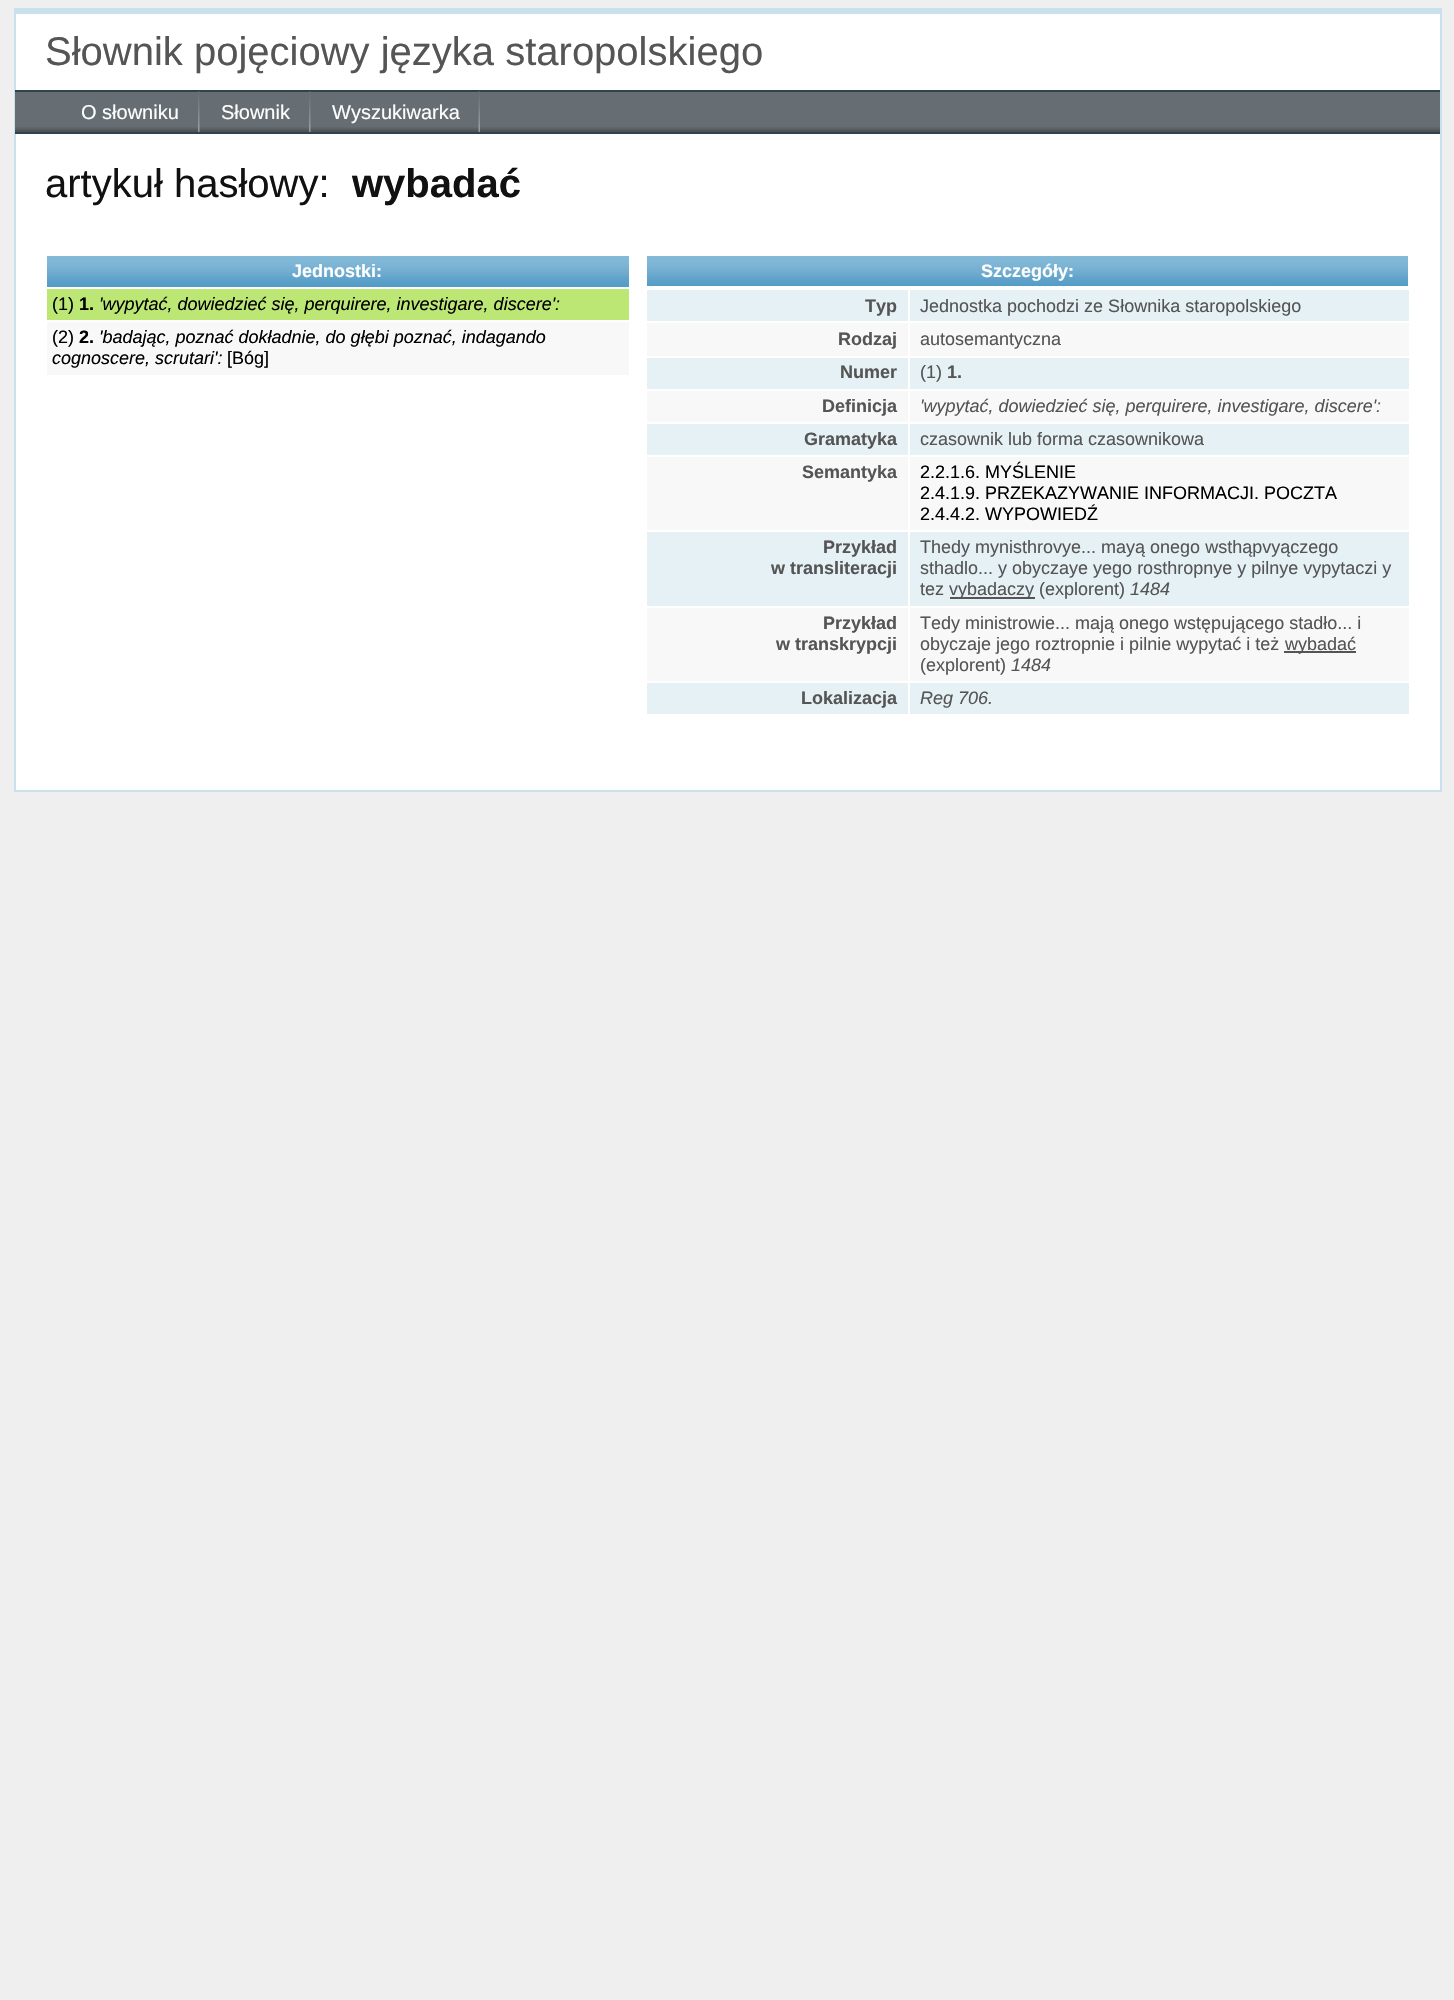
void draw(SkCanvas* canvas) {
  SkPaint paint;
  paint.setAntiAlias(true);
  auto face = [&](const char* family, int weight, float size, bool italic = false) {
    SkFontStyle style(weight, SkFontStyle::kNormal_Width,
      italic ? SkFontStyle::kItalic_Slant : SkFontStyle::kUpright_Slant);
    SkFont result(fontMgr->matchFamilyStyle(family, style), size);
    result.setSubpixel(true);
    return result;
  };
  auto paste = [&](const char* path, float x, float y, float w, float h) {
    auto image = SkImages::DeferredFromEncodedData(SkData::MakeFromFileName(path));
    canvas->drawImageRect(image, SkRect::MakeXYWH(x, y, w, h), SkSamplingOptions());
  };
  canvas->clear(0xffefefef);
  paint.setColor(0xffffffff);
  canvas->drawRect(SkRect::MakeXYWH(16, 14, 1424, 776), paint);
  paint.setStroke(true);
  paint.setStrokeWidth(2);
  paint.setColor(0xffc9e0ed);
  canvas->drawRect(SkRect::MakeXYWH(15, 9, 1426, 782), paint);
  paint.setStroke(false);
  canvas->drawRect(SkRect::MakeXYWH(15, 10, 1425, 4), paint);
  paint.setColor(0xff666e73);
  canvas->drawRect(SkRect::MakeXYWH(15, 92, 1425, 35), paint);
  paste("img/1.png", 15, 127, 1425, 5);
  paint.setColor(0xff2d444f);
  canvas->drawRect(SkRect::MakeXYWH(15, 90, 1425, 2), paint);
  canvas->drawRect(SkRect::MakeXYWH(15, 132, 1425, 2), paint);
  paste("img/2.png", 198, 91, 2, 41);
  paste("img/2.png", 309, 91, 2, 41);
  paste("img/3.png", 478, 91, 2, 41);
  paste("img/4.png", 47, 256, 582, 31);
  paint.setColor(0xffbce774);
  canvas->drawRect(SkRect::MakeXYWH(47, 289, 582, 31), paint);
  paint.setColor(0xfff8f8f8);
  canvas->drawRect(SkRect::MakeXYWH(47, 322, 582, 53), paint);
  paste("img/5.png", 647, 256, 761, 30);
  {
    const struct { float x, y, w, h; SkColor color; } items[] = {
      {647, 290, 762, 31, 0xffe5f1f4},
      {647, 323, 762, 33, 0xfff8f8f8},
      {647, 358, 762, 31, 0xffe5f1f4},
      {647, 391, 762, 31, 0xfff8f8f8},
      {647, 424, 762, 31, 0xffe5f1f4},
      {647, 457, 762, 73, 0xfff8f8f8},
      {647, 532, 762, 74, 0xffe5f1f4},
      {950, 597, 85, 2, 0xff555555},
      {647, 608, 762, 73, 0xfff8f8f8},
      {1284, 651, 72, 2, 0xff555555},
      {647, 683, 762, 31, 0xffe5f1f4},
      {908, 288, 2, 428, 0xffffffff},
    };
    for (auto [x, y, w, h, color] : items) {
      paint.setColor(color);
      canvas->drawRect(SkRect::MakeXYWH(x, y, w, h), paint);
    }
  }
  auto f0 = face("Liberation Sans", 400, 40);
  paint.setColor(0xff555555);
  canvas->drawString("Słownik pojęciowy języka staropolskiego", 45, 65, f0, paint);
  auto f1 = face("Liberation Sans", 400, 20);
  paint.setColor(0xffffffff);
  {
    const struct { const char* s; float x, y; } items[] = {
      {"O słowniku", 81, 119},
      {"Słownik", 221, 119},
      {"Wyszukiwarka", 332, 119},
    };
    for (auto [s, x, y] : items) {
      canvas->drawString(s, x, y, f1, paint);
    }
  }
  paint.setColor(0xff111111);
  canvas->drawString("artykuł hasłowy:", 45, 197, f0, paint);
  auto f2 = face("Liberation Sans", 700, 40);
  canvas->drawString("wybadać", 352, 197, f2, paint);
  auto f3 = face("Liberation Sans", 700, 18);
  paint.setColor(0xffffffff);
  canvas->drawString("Jednostki:", 292, 277, f3, paint);
  auto f4 = face("Liberation Sans", 400, 18);
  paint.setColor(0xff000000);
  canvas->drawString("(1)", 52, 310, f4, paint);
  canvas->drawString("1.", 79, 310, f3, paint);
  auto f5 = face("Liberation Sans", 400, 18, true);
  canvas->drawString("'wypytać, dowiedzieć się, perquirere, investigare, discere':", 99, 310, f5, paint);
  canvas->drawString("(2)", 52, 343, f4, paint);
  canvas->drawString("2.", 79, 343, f3, paint);
  canvas->drawString("'badając, poznać dokładnie, do głębi poznać, indagando", 99, 343, f5, paint);
  canvas->drawString("cognoscere, scrutari':", 52, 364, f5, paint);
  canvas->drawString("[Bóg]", 227, 364, f4, paint);
  paint.setColor(0xffffffff);
  canvas->drawString("Szczegóły:", 981, 277, f3, paint);
  paint.setColor(0xff555555);
  canvas->drawString("Typ", 865, 312, f3, paint);
  canvas->drawString("Jednostka pochodzi ze Słownika staropolskiego", 920, 312, f4, paint);
  canvas->drawString("Rodzaj", 838, 345, f3, paint);
  canvas->drawString("autosemantyczna", 920, 345, f4, paint);
  canvas->drawString("Numer", 840, 378, f3, paint);
  canvas->drawString("(1)", 920, 378, f4, paint);
  canvas->drawString("1.", 947, 378, f3, paint);
  canvas->drawString("Definicja", 822, 412, f3, paint);
  canvas->drawString("'wypytać, dowiedzieć się, perquirere, investigare, discere':", 920, 412, f5, paint);
  canvas->drawString("Gramatyka", 804, 445, f3, paint);
  canvas->drawString("czasownik lub forma czasownikowa", 920, 445, f4, paint);
  canvas->drawString("Semantyka", 802, 478, f3, paint);
  paint.setColor(0xff000000);
  {
    const struct { const char* s; float x, y; } items[] = {
      {"2.2.1.6. MYŚLENIE", 920, 478},
      {"2.4.1.9. PRZEKAZYWANIE INFORMACJI. POCZTA", 920, 499},
      {"2.4.4.2. WYPOWIEDŹ", 920, 520},
    };
    for (auto [s, x, y] : items) {
      canvas->drawString(s, x, y, f4, paint);
    }
  }
  paint.setColor(0xff555555);
  canvas->drawString("Przykład", 823, 553, f3, paint);
  canvas->drawString("w transliteracji", 771, 574, f3, paint);
  {
    const struct { const char* s; float x, y; } items[] = {
      {"Thedy mynisthrovye... mayą onego wsthąpvyączego", 920, 553},
      {"sthadlo... y obyczaye yego rosthropnye y pilnye vypytaczi y", 920, 574},
      {"tez", 920, 595},
      {"vybadaczy (explorent)", 949, 595},
    };
    for (auto [s, x, y] : items) {
      canvas->drawString(s, x, y, f4, paint);
    }
  }
  canvas->drawString("1484", 1130, 595, f5, paint);
  canvas->drawString("Przykład", 823, 629, f3, paint);
  canvas->drawString("w transkrypcji", 776, 650, f3, paint);
  {
    const struct { const char* s; float x, y; } items[] = {
      {"Tedy ministrowie... mają onego wstępującego stadło... i", 920, 629},
      {"obyczaje jego roztropnie i pilnie wypytać i też", 920, 650},
      {"wybadać", 1285, 650},
      {"(explorent)", 920, 671},
    };
    for (auto [s, x, y] : items) {
      canvas->drawString(s, x, y, f4, paint);
    }
  }
  canvas->drawString("1484", 1011, 671, f5, paint);
  canvas->drawString("Lokalizacja", 801, 704, f3, paint);
  canvas->drawString("Reg 706.", 920, 704, f5, paint);
}
